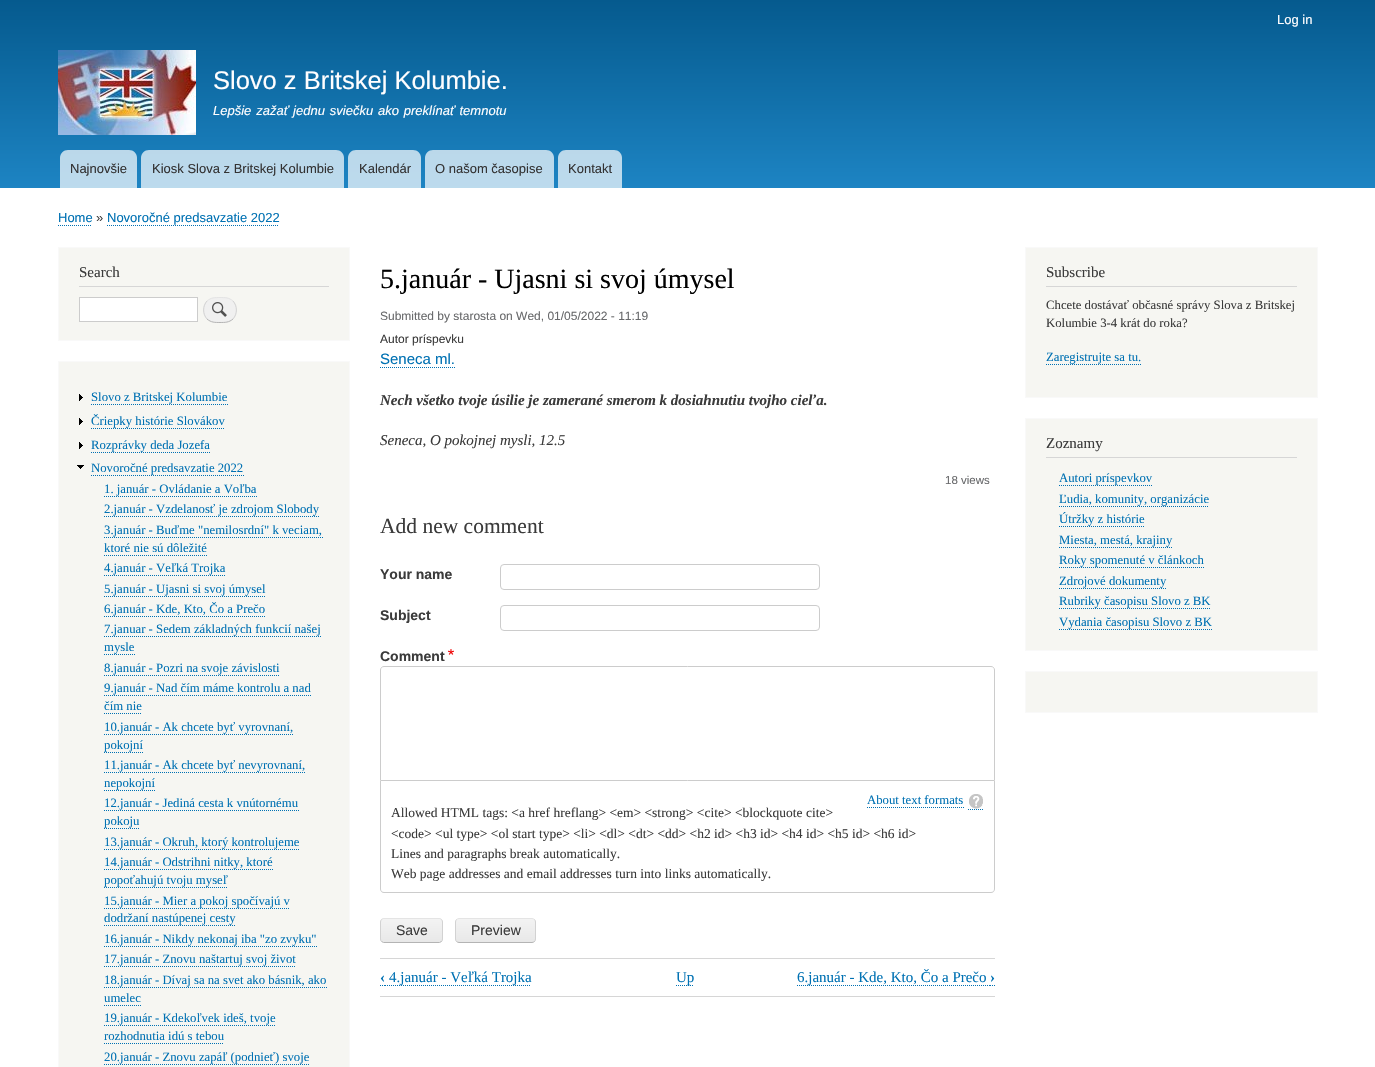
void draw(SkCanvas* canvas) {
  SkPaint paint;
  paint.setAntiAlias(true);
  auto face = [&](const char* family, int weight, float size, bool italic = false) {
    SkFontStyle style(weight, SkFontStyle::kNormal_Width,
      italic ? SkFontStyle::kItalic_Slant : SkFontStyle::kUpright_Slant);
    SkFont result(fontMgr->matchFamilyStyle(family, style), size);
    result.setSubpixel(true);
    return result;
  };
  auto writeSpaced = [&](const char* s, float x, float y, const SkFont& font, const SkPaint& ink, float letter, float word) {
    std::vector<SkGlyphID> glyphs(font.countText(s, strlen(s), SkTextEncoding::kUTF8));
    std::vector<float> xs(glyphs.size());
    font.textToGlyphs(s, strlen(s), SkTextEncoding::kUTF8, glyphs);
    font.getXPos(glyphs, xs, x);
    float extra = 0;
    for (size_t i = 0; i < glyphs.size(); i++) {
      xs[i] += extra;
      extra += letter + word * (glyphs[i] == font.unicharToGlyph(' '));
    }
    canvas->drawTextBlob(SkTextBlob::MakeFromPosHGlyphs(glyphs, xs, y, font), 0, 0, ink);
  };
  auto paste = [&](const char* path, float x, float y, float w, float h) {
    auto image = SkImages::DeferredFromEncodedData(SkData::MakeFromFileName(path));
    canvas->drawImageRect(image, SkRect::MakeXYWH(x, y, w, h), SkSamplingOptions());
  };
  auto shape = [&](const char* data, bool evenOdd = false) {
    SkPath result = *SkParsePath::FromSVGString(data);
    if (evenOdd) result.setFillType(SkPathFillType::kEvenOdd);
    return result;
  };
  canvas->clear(0xffffffff);
  {
    const SkColor colors[] = {0xff055a8e, 0xff1d84c3};
    const float stops[] = {0, 1};
    const SkPoint ends[] = {{688, 0}, {688, 188}};
    paint.setShader(SkGradientShader::MakeLinear(ends, colors, stops, 2, SkTileMode::kClamp));
    paint.setAlpha(255);
  }
  canvas->drawRect(SkRect::MakeXYWH(0, 0, 1375, 188), paint);
  paste("img/1.png", 58, 50, 138, 85);
  paint.setShader(nullptr);
  paint.setColor(0xb3ffffff);
  canvas->drawPath(shape("M68 150H129C133.5 150 137 153.5 137 158V188H60V158C60 153.5 63.5 150 68 150Z"), paint);
  canvas->drawPath(shape("M149 150H336C340.5 150 344 153.5 344 158V188H141V158C141 153.5 144.5 150 149 150Z"), paint);
  canvas->drawPath(shape("M356 150H413C417.5 150 421 153.5 421 158V188H348V158C348 153.5 351.5 150 356 150Z"), paint);
  canvas->drawPath(shape("M433 150H546C550.5 150 554 153.5 554 158V188H425V158C425 153.5 428.5 150 433 150Z"), paint);
  canvas->drawPath(shape("M566 150H614C618.5 150 622 153.5 622 158V188H558V158C558 153.5 561.5 150 566 150Z"), paint);
  paint.setStroke(true);
  paint.setStrokeWidth(1);
  paint.setColor(0xff0071b3);
  paint.setPathEffect(SkDashPathEffect::Make({{1, 1}}, 0));
  canvas->drawPath(shape("M58 225.5H92"), paint);
  paint.setPathEffect(nullptr);
  paint.setPathEffect(SkDashPathEffect::Make({{1, 1}}, 0));
  canvas->drawPath(shape("M107 225.5H279"), paint);
  paint.setPathEffect(nullptr);
  paint.setStroke(false);
  paint.setColor(0xfff6f6f2);
  canvas->drawRect(SkRect::MakeXYWH(58.5f, 247.5f, 291, 93), paint);
  paint.setStroke(true);
  paint.setColor(0xfff9f9f9);
  canvas->drawRect(SkRect::MakeXYWH(58.5f, 247.5f, 291, 93), paint);
  paint.setStroke(false);
  paint.setColor(0xffd6d6d6);
  canvas->drawRect(SkRect::MakeXYWH(79, 286, 250, 1), paint);
  paint.setColor(0xffffffff);
  canvas->drawRect(SkRect::MakeXYWH(79.5f, 297.5f, 118, 24), paint);
  paint.setStroke(true);
  paint.setColor(0xffcccccc);
  canvas->drawRect(SkRect::MakeXYWH(79.5f, 297.5f, 118, 24), paint);
  paint.setStroke(false);
  paint.setColor(0xfff0f0f0);
  canvas->drawRoundRect(SkRect::MakeXYWH(203, 297, 34, 26), 13, 13, paint);
  paste("img/2.png", 212, 302, 15, 15);
  paint.setStroke(true);
  paint.setColor(0xffe4e4e4);
  canvas->drawPath(shape("M207 301C211 297.5 215 297.5 220 297.5C225 297.5 229 297.5 233 301"), paint);
  paint.setColor(0xffd2d2d2);
  canvas->drawPath(shape("M233 301C237.5 306 237.5 314 233 319"), paint);
  paint.setColor(0xffb4b4b4);
  canvas->drawPath(shape("M233 319C229 322.5 225 322.5 220 322.5C215 322.5 211 322.5 207 319"), paint);
  paint.setColor(0xffd2d2d2);
  canvas->drawPath(shape("M207 319C202.5 314 202.5 306 207 301"), paint);
  paint.setStroke(false);
  paint.setColor(0xfff6f6f2);
  canvas->drawRect(SkRect::MakeXYWH(58.5f, 361.5f, 291, 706), paint);
  paint.setStroke(true);
  paint.setColor(0xfff9f9f9);
  canvas->drawRect(SkRect::MakeXYWH(58.5f, 361.5f, 291, 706), paint);
  paste("img/3.png", 79, 394, 4, 7);
  paint.setColor(0xff0071b3);
  paint.setPathEffect(SkDashPathEffect::Make({{1, 1}}, 0));
  canvas->drawPath(shape("M91 404.5H228"), paint);
  paint.setPathEffect(nullptr);
  paste("img/3.png", 79, 418, 4, 7);
  paint.setPathEffect(SkDashPathEffect::Make({{1, 1}}, 0));
  canvas->drawPath(shape("M91 428.5H225"), paint);
  paint.setPathEffect(nullptr);
  paste("img/3.png", 79, 442, 4, 7);
  paint.setPathEffect(SkDashPathEffect::Make({{1, 1}}, 0));
  canvas->drawPath(shape("M91 452.5H211"), paint);
  paint.setPathEffect(nullptr);
  paste("img/4.png", 77, 465, 7, 4);
  paint.setPathEffect(SkDashPathEffect::Make({{1, 1}}, 0));
  canvas->drawPath(shape("M91 475.5H244"), paint);
  paint.setPathEffect(nullptr);
  paint.setPathEffect(SkDashPathEffect::Make({{1, 1}}, 0));
  canvas->drawPath(shape("M104 496.5H257"), paint);
  paint.setPathEffect(nullptr);
  paint.setPathEffect(SkDashPathEffect::Make({{1, 1}}, 0));
  canvas->drawPath(shape("M104 516.5H320"), paint);
  paint.setPathEffect(nullptr);
  paint.setPathEffect(SkDashPathEffect::Make({{1, 1}}, 0));
  canvas->drawPath(shape("M104 537.5H323"), paint);
  paint.setPathEffect(nullptr);
  paint.setPathEffect(SkDashPathEffect::Make({{1, 1}}, 0));
  canvas->drawPath(shape("M104 555.5H207"), paint);
  paint.setPathEffect(nullptr);
  paint.setPathEffect(SkDashPathEffect::Make({{1, 1}}, 0));
  canvas->drawPath(shape("M104 575.5H226"), paint);
  paint.setPathEffect(nullptr);
  paint.setPathEffect(SkDashPathEffect::Make({{1, 1}}, 0));
  canvas->drawPath(shape("M104 596.5H266"), paint);
  paint.setPathEffect(nullptr);
  paint.setPathEffect(SkDashPathEffect::Make({{1, 1}}, 0));
  canvas->drawPath(shape("M104 616.5H266"), paint);
  paint.setPathEffect(nullptr);
  paint.setPathEffect(SkDashPathEffect::Make({{1, 1}}, 0));
  canvas->drawPath(shape("M104 636.5H321"), paint);
  paint.setPathEffect(nullptr);
  paint.setPathEffect(SkDashPathEffect::Make({{1, 1}}, 0));
  canvas->drawPath(shape("M104 654.5H135"), paint);
  paint.setPathEffect(nullptr);
  paint.setPathEffect(SkDashPathEffect::Make({{1, 1}}, 0));
  canvas->drawPath(shape("M104 675.5H280"), paint);
  paint.setPathEffect(nullptr);
  paint.setPathEffect(SkDashPathEffect::Make({{1, 1}}, 0));
  canvas->drawPath(shape("M104 695.5H311"), paint);
  paint.setPathEffect(nullptr);
  paint.setPathEffect(SkDashPathEffect::Make({{1, 1}}, 0));
  canvas->drawPath(shape("M104 713.5H142"), paint);
  paint.setPathEffect(nullptr);
  paint.setPathEffect(SkDashPathEffect::Make({{1, 1}}, 0));
  canvas->drawPath(shape("M104 734.5H294"), paint);
  paint.setPathEffect(nullptr);
  paint.setPathEffect(SkDashPathEffect::Make({{1, 1}}, 0));
  canvas->drawPath(shape("M104 752.5H143"), paint);
  paint.setPathEffect(nullptr);
  paint.setPathEffect(SkDashPathEffect::Make({{1, 1}}, 0));
  canvas->drawPath(shape("M104 772.5H306"), paint);
  paint.setPathEffect(nullptr);
  paint.setPathEffect(SkDashPathEffect::Make({{1, 1}}, 0));
  canvas->drawPath(shape("M104 790.5H155"), paint);
  paint.setPathEffect(nullptr);
  paint.setPathEffect(SkDashPathEffect::Make({{1, 1}}, 0));
  canvas->drawPath(shape("M104 810.5H299"), paint);
  paint.setPathEffect(nullptr);
  paint.setPathEffect(SkDashPathEffect::Make({{1, 1}}, 0));
  canvas->drawPath(shape("M104 828.5H140"), paint);
  paint.setPathEffect(nullptr);
  paint.setPathEffect(SkDashPathEffect::Make({{1, 1}}, 0));
  canvas->drawPath(shape("M104 849.5H300"), paint);
  paint.setPathEffect(nullptr);
  paint.setPathEffect(SkDashPathEffect::Make({{1, 1}}, 0));
  canvas->drawPath(shape("M104 869.5H273"), paint);
  paint.setPathEffect(nullptr);
  paint.setPathEffect(SkDashPathEffect::Make({{1, 1}}, 0));
  canvas->drawPath(shape("M104 887.5H228"), paint);
  paint.setPathEffect(nullptr);
  paint.setPathEffect(SkDashPathEffect::Make({{1, 1}}, 0));
  canvas->drawPath(shape("M104 908.5H290"), paint);
  paint.setPathEffect(nullptr);
  paint.setPathEffect(SkDashPathEffect::Make({{1, 1}}, 0));
  canvas->drawPath(shape("M104 925.5H236"), paint);
  paint.setPathEffect(nullptr);
  paint.setPathEffect(SkDashPathEffect::Make({{1, 1}}, 0));
  canvas->drawPath(shape("M104 946.5H317"), paint);
  paint.setPathEffect(nullptr);
  paint.setPathEffect(SkDashPathEffect::Make({{1, 1}}, 0));
  canvas->drawPath(shape("M104 966.5H296"), paint);
  paint.setPathEffect(nullptr);
  paint.setPathEffect(SkDashPathEffect::Make({{1, 1}}, 0));
  canvas->drawPath(shape("M104 987.5H327"), paint);
  paint.setPathEffect(nullptr);
  paint.setPathEffect(SkDashPathEffect::Make({{1, 1}}, 0));
  canvas->drawPath(shape("M104 1005.5H141"), paint);
  paint.setPathEffect(nullptr);
  paint.setPathEffect(SkDashPathEffect::Make({{1, 1}}, 0));
  canvas->drawPath(shape("M104 1025.5H276"), paint);
  paint.setPathEffect(nullptr);
  paint.setPathEffect(SkDashPathEffect::Make({{1, 1}}, 0));
  canvas->drawPath(shape("M104 1043.5H224"), paint);
  paint.setPathEffect(nullptr);
  paint.setPathEffect(SkDashPathEffect::Make({{1, 1}}, 0));
  canvas->drawPath(shape("M104 1064.5H310"), paint);
  paint.setPathEffect(nullptr);
  paint.setPathEffect(SkDashPathEffect::Make({{1, 1}}, 0));
  canvas->drawPath(shape("M380 367.5H455"), paint);
  paint.setPathEffect(nullptr);
  paint.setColor(0xffcccccc);
  canvas->drawRoundRect(SkRect::MakeXYWH(500.5f, 564.5f, 319, 25), 3.5f, 3.5f, paint);
  canvas->drawRoundRect(SkRect::MakeXYWH(500.5f, 605.5f, 319, 25), 3.5f, 3.5f, paint);
  paste("img/5.png", 448, 649, 6, 6);
  canvas->drawPath(shape("M384 666.5H991C993 666.5 994.5 668 994.5 670V780.5H380.5V670C380.5 668 382 666.5 384 666.5Z"), paint);
  paint.setStroke(false);
  canvas->drawPath(shape("M380 781H995V889C995 891 993 893 991 893H384C382 893 380 891 380 889ZM381 781H994V889C994 891 993 892 991 892H384C382 892 381 891 381 889Z", true), paint);
  paint.setStroke(true);
  paint.setColor(0xff0071b3);
  paint.setPathEffect(SkDashPathEffect::Make({{1, 1}}, 0));
  canvas->drawPath(shape("M867 807.5H964"), paint);
  paint.setPathEffect(nullptr);
  paint.setPathEffect(SkDashPathEffect::Make({{1, 1}}, 0));
  canvas->drawPath(shape("M968 809.5H984"), paint);
  paint.setPathEffect(nullptr);
  paste("img/6.png", 969, 794, 14, 15);
  canvas->save();
  canvas->clipPath(shape("M384 918H439C441 918 443 920 443 922V939C443 941 441 943 439 943H384C382 943 380 941 380 939V922C380 920 382 918 384 918Z"), true);
  paint.setStroke(false);
  {
    const SkColor colors[] = {0xfff3f3f3, 0xffe8e8e8};
    const float stops[] = {0, 1};
    const SkPoint ends[] = {{412, 896}, {412, 919}};
    paint.setShader(SkGradientShader::MakeLinear(ends, colors, stops, 2, SkTileMode::kClamp));
    paint.setAlpha(255);
  }
  canvas->drawRect(SkRect::MakeXYWH(380, 918, 63, 1), paint);
  {
    const SkColor colors[] = {0xfff3f3f3, 0xffe8e8e8};
    const float stops[] = {0, 1};
    const SkPoint ends[] = {{412, 919}, {412, 942}};
    paint.setShader(SkGradientShader::MakeLinear(ends, colors, stops, 2, SkTileMode::kClamp));
    paint.setAlpha(255);
  }
  canvas->drawRect(SkRect::MakeXYWH(380, 919, 63, 23), paint);
  canvas->restore();
  paint.setStroke(true);
  paint.setShader(nullptr);
  paint.setColor(0xffe4e4e4);
  canvas->drawPath(shape("M381.5 919.5L383.5 918.5H439.5L441.5 919.5"), paint);
  paint.setColor(0xffd2d2d2);
  canvas->drawPath(shape("M441.5 919.5C442 920 442.5 921 442.5 922V939C442.5 940 442 941 441.5 941.5"), paint);
  paint.setColor(0xffb4b4b4);
  canvas->drawPath(shape("M441.5 941.5L439.5 942.5H383.5L381.5 941.5"), paint);
  paint.setColor(0xffd2d2d2);
  canvas->drawPath(shape("M381.5 941.5C381 941 380.5 940 380.5 939V922C380.5 921 381 920 381.5 919.5"), paint);
  canvas->save();
  canvas->clipPath(shape("M459 918H532C534 918 536 920 536 922V939C536 941 534 943 532 943H459C457 943 455 941 455 939V922C455 920 457 918 459 918Z"), true);
  paint.setStroke(false);
  {
    const SkColor colors[] = {0xfff3f3f3, 0xffe8e8e8};
    const float stops[] = {0, 1};
    const SkPoint ends[] = {{496, 919}, {496, 942}};
    paint.setShader(SkGradientShader::MakeLinear(ends, colors, stops, 2, SkTileMode::kClamp));
    paint.setAlpha(255);
  }
  canvas->drawRect(SkRect::MakeXYWH(455, 919, 81, 23), paint);
  canvas->restore();
  paint.setStroke(true);
  paint.setShader(nullptr);
  paint.setColor(0xffe4e4e4);
  canvas->drawPath(shape("M456.5 919.5C457 919 458 918.5 459 918.5H532C533 918.5 534 919 534.5 919.5"), paint);
  paint.setColor(0xffd2d2d2);
  canvas->drawPath(shape("M534.5 919.5C535 920 535.5 921 535.5 922V939C535.5 940 535 941 534.5 941.5"), paint);
  paint.setColor(0xffb4b4b4);
  canvas->drawPath(shape("M534.5 941.5C534 942 533 942.5 532 942.5H459C458 942.5 457 942 456.5 941.5"), paint);
  paint.setColor(0xffd2d2d2);
  canvas->drawPath(shape("M456.5 941.5C456 941 455.5 940 455.5 939V922C455.5 921 456 920 456.5 919.5"), paint);
  paint.setStroke(false);
  paint.setColor(0xffd6d6d6);
  canvas->drawRect(SkRect::MakeXYWH(380, 958, 615, 1), paint);
  canvas->drawRect(SkRect::MakeXYWH(380, 996, 615, 1), paint);
  paint.setStroke(true);
  paint.setColor(0xff0071b3);
  canvas->drawPath(shape("M380 985.5H381M382 985.5H383M384 985.5H385"), paint);
  paint.setPathEffect(SkDashPathEffect::Make({{1, 1}}, 0));
  canvas->drawPath(shape("M385 985.5H531"), paint);
  paint.setPathEffect(nullptr);
  paint.setPathEffect(SkDashPathEffect::Make({{1, 1}}, 0));
  canvas->drawPath(shape("M676 985.5H694"), paint);
  paint.setPathEffect(nullptr);
  paint.setPathEffect(SkDashPathEffect::Make({{1, 1}}, 0));
  canvas->drawPath(shape("M797 985.5H990"), paint);
  paint.setPathEffect(nullptr);
  canvas->drawPath(shape("M990 985.5H991M992 985.5H993M994 985.5H995"), paint);
  paint.setStroke(false);
  paint.setColor(0xfff6f6f2);
  canvas->drawRect(SkRect::MakeXYWH(1025.5f, 247.5f, 292, 150), paint);
  paint.setStroke(true);
  paint.setColor(0xfff9f9f9);
  canvas->drawRect(SkRect::MakeXYWH(1025.5f, 247.5f, 292, 150), paint);
  paint.setStroke(false);
  paint.setColor(0xffd6d6d6);
  canvas->drawRect(SkRect::MakeXYWH(1046, 286, 251, 1), paint);
  paint.setStroke(true);
  paint.setColor(0xff0071b3);
  paint.setPathEffect(SkDashPathEffect::Make({{1, 1}}, 0));
  canvas->drawPath(shape("M1046 364.5H1141"), paint);
  paint.setPathEffect(nullptr);
  paint.setStroke(false);
  paint.setColor(0xfff6f6f2);
  canvas->drawRect(SkRect::MakeXYWH(1025.5f, 418.5f, 292, 232), paint);
  paint.setStroke(true);
  paint.setColor(0xfff9f9f9);
  canvas->drawRect(SkRect::MakeXYWH(1025.5f, 418.5f, 292, 232), paint);
  paint.setStroke(false);
  paint.setColor(0xffd6d6d6);
  canvas->drawRect(SkRect::MakeXYWH(1046, 457, 251, 1), paint);
  paint.setStroke(true);
  paint.setColor(0xff0071b3);
  paint.setPathEffect(SkDashPathEffect::Make({{1, 1}}, 0));
  canvas->drawPath(shape("M1059 485.5H1152"), paint);
  paint.setPathEffect(nullptr);
  paint.setPathEffect(SkDashPathEffect::Make({{1, 1}}, 0));
  canvas->drawPath(shape("M1059 506.5H1209"), paint);
  paint.setPathEffect(nullptr);
  paint.setPathEffect(SkDashPathEffect::Make({{1, 1}}, 0));
  canvas->drawPath(shape("M1059 526.5H1145"), paint);
  paint.setPathEffect(nullptr);
  paint.setPathEffect(SkDashPathEffect::Make({{1, 1}}, 0));
  canvas->drawPath(shape("M1059 547.5H1172"), paint);
  paint.setPathEffect(nullptr);
  paint.setPathEffect(SkDashPathEffect::Make({{1, 1}}, 0));
  canvas->drawPath(shape("M1059 567.5H1204"), paint);
  paint.setPathEffect(nullptr);
  paint.setPathEffect(SkDashPathEffect::Make({{1, 1}}, 0));
  canvas->drawPath(shape("M1059 588.5H1166"), paint);
  paint.setPathEffect(nullptr);
  paint.setPathEffect(SkDashPathEffect::Make({{1, 1}}, 0));
  canvas->drawPath(shape("M1059 608.5H1211"), paint);
  paint.setPathEffect(nullptr);
  paint.setPathEffect(SkDashPathEffect::Make({{1, 1}}, 0));
  canvas->drawPath(shape("M1059 629.5H1212"), paint);
  paint.setPathEffect(nullptr);
  paint.setStroke(false);
  paint.setColor(0xfff6f6f2);
  canvas->drawRect(SkRect::MakeXYWH(1025.5f, 671.5f, 292, 41), paint);
  paint.setStroke(true);
  paint.setColor(0xfff9f9f9);
  canvas->drawRect(SkRect::MakeXYWH(1025.5f, 671.5f, 292, 41), paint);
  auto f0 = face("Liberation Sans", 400, 13);
  paint.setStroke(false);
  paint.setColor(0xfffffeff);
  canvas->drawString("Log in", 1277, 24, f0, paint);
  auto f1 = face("Liberation Sans", 400, 25.5f);
  canvas->drawString("Slovo z Britskej Kolumbie.", 213, 89, f1, paint);
  auto f2 = face("Liberation Sans", 400, 13, true);
  writeSpaced("Lepšie zažať jednu sviečku ako preklínať temnotu", 213, 115, f2, paint, 0, 1.25f);
  paint.setColor(0xff333333);
  {
    const struct { const char* s; float x, y; } items[] = {
      {"Najnovšie", 70, 173},
      {"Kiosk Slova z Britskej Kolumbie", 152, 173},
      {"Kalendár", 359, 173},
      {"O našom časopise", 435, 173},
      {"Kontakt", 568, 173},
    };
    for (auto [s, x, y] : items) {
      canvas->drawString(s, x, y, f0, paint);
    }
  }
  paint.setColor(0xff0071b3);
  canvas->drawString("Home", 58, 222, f0, paint);
  paint.setColor(0xff3b3b3b);
  canvas->drawString("»", 96, 222, f0, paint);
  paint.setColor(0xff0071b3);
  canvas->drawString("Novoročné predsavzatie 2022", 107, 222, f0, paint);
  auto f3 = face("Liberation Serif", 400, 15);
  paint.setColor(0xff3b3b3b);
  canvas->drawString("Search", 79, 277, f3, paint);
  auto f4 = face("Liberation Serif", 400, 12.75f);
  paint.setColor(0xff0071b3);
  {
    const struct { const char* s; float x, y; } items[] = {
      {"Slovo z Britskej Kolumbie", 91, 401},
      {"Čriepky histórie Slovákov", 91, 425},
      {"Rozprávky deda Jozefa", 91, 449},
      {"Novoročné predsavzatie 2022", 91, 472},
      {"1. január - Ovládanie a Voľba", 104, 493},
      {"2.január - Vzdelanosť je zdrojom Slobody", 104, 513},
      {"3.január - Buďme \"nemilosrdní\" k veciam,", 104, 534},
      {"ktoré nie sú dôležité", 104, 552},
      {"4.január - Veľká Trojka", 104, 572},
      {"5.január - Ujasni si svoj úmysel", 104, 593},
      {"6.január - Kde, Kto, Čo a Prečo", 104, 613},
      {"7.januar - Sedem základných funkcií našej", 104, 633},
      {"mysle", 104, 651},
      {"8.január - Pozri na svoje závislosti", 104, 672},
      {"9.január - Nad čím máme kontrolu a nad", 104, 692},
      {"čím nie", 104, 710},
      {"10.január - Ak chcete byť vyrovnaní,", 104, 731},
      {"pokojní", 104, 749},
      {"11.január - Ak chcete byť nevyrovnaní,", 104, 769},
      {"nepokojní", 104, 787},
      {"12.január - Jediná cesta k vnútornému", 104, 807},
      {"pokoju", 104, 825},
      {"13.január - Okruh, ktorý kontrolujeme", 104, 846},
      {"14.január - Odstrihni nitky, ktoré", 104, 866},
      {"popoťahujú tvoju myseľ", 104, 884},
      {"15.január - Mier a pokoj spočívajú v", 104, 905},
      {"dodržaní nastúpenej cesty", 104, 922},
      {"16.január - Nikdy nekonaj iba \"zo zvyku\"", 104, 943},
      {"17.január - Znovu naštartuj svoj život", 104, 963},
      {"18.január - Dívaj sa na svet ako básnik, ako", 104, 984},
      {"umelec", 104, 1002},
      {"19.január - Kdekoľvek ideš, tvoje", 104, 1022},
      {"rozhodnutia idú s tebou", 104, 1040},
      {"20.január - Znovu zapáľ (podnieť) svoje", 104, 1061},
    };
    for (auto [s, x, y] : items) {
      canvas->drawString(s, x, y, f4, paint);
    }
  }
  auto f5 = face("Liberation Serif", 400, 28);
  paint.setColor(0xff000000);
  canvas->drawString("5.január - Ujasni si svoj úmysel", 380, 288, f5, paint);
  auto f6 = face("Liberation Sans", 400, 12);
  paint.setColor(0xff68696b);
  canvas->drawString("Submitted by starosta on Wed, 01/05/2022 - 11:19", 380, 320, f6, paint);
  paint.setColor(0xff3b3b3b);
  canvas->drawString("Autor príspevku", 380, 343, f6, paint);
  auto f7 = face("Liberation Sans", 400, 15);
  paint.setColor(0xff0071b3);
  canvas->drawString("Seneca ml.", 380, 364, f7, paint);
  auto f8 = face("Liberation Serif", 700, 15, true);
  paint.setColor(0xff3b3b3b);
  canvas->drawString("Nech všetko tvoje úsilie je zamerané smerom k dosiahnutiu tvojho cieľa.", 380, 405, f8, paint);
  auto f9 = face("Liberation Serif", 400, 15, true);
  canvas->drawString("Seneca, O pokojnej mysli, 12.5", 380, 445, f9, paint);
  auto f10 = face("Liberation Sans", 400, 11.5f);
  paint.setColor(0xff68696b);
  canvas->drawString("18 views", 945, 484, f10, paint);
  auto f11 = face("Liberation Serif", 400, 21.5f);
  paint.setColor(0xff3b3b3b);
  canvas->drawString("Add new comment", 380, 533, f11, paint);
  auto f12 = face("Liberation Sans", 700, 14);
  {
    const struct { const char* s; float x, y; } items[] = {
      {"Your name", 380, 579},
      {"Subject", 380, 620},
      {"Comment", 380, 661},
    };
    for (auto [s, x, y] : items) {
      canvas->drawString(s, x, y, f12, paint);
    }
  }
  paint.setColor(0xff0071b3);
  canvas->drawString("About text formats", 867, 804, f4, paint);
  auto f13 = face("Liberation Serif", 400, 13.5f);
  paint.setColor(0xff3b3b3b);
  {
    const struct { const char* s; float x, y; } items[] = {
      {"Allowed HTML tags: <a href hreflang> <em> <strong> <cite> <blockquote cite>", 391, 817},
      {"<code> <ul type> <ol start type> <li> <dl> <dt> <dd> <h2 id> <h3 id> <h4 id> <h5 id> <h6 id>", 391, 838},
      {"Lines and paragraphs break automatically.", 391, 858},
      {"Web page addresses and email addresses turn into links automatically.", 391, 878},
    };
    for (auto [s, x, y] : items) {
      canvas->drawString(s, x, y, f13, paint);
    }
  }
  auto f14 = face("Liberation Sans", 400, 14);
  canvas->drawString("Save", 396, 935, f14, paint);
  canvas->drawString("Preview", 471, 935, f14, paint);
  auto f15 = face("Liberation Serif", 700, 15);
  paint.setColor(0xff0071b3);
  canvas->drawString("‹", 380, 982, f15, paint);
  {
    const struct { const char* s; float x, y; } items[] = {
      {"4.január - Veľká Trojka", 389, 982},
      {"Up", 676, 982},
      {"6.január - Kde, Kto, Čo a Prečo", 797, 982},
    };
    for (auto [s, x, y] : items) {
      canvas->drawString(s, x, y, f3, paint);
    }
  }
  canvas->drawString("›", 990, 982, f15, paint);
  paint.setColor(0xff3b3b3b);
  canvas->drawString("Subscribe", 1046, 277, f3, paint);
  canvas->drawString("Chcete dostávať občasné správy Slova z Britskej", 1046, 309, f4, paint);
  canvas->drawString("Kolumbie 3-4 krát do roka?", 1046, 327, f4, paint);
  paint.setColor(0xff0071b3);
  canvas->drawString("Zaregistrujte sa tu.", 1046, 361, f4, paint);
  paint.setColor(0xff3b3b3b);
  canvas->drawString("Zoznamy", 1046, 448, f3, paint);
  paint.setColor(0xff0071b3);
  {
    const struct { const char* s; float x, y; } items[] = {
      {"Autori príspevkov", 1059, 482},
      {"Ľudia, komunity, organizácie", 1059, 503},
      {"Útržky z histórie", 1059, 523},
      {"Miesta, mestá, krajiny", 1059, 544},
      {"Roky spomenuté v článkoch", 1059, 564},
      {"Zdrojové dokumenty", 1059, 585},
      {"Rubriky časopisu Slovo z BK", 1059, 605},
      {"Vydania časopisu Slovo z BK", 1059, 626},
    };
    for (auto [s, x, y] : items) {
      canvas->drawString(s, x, y, f4, paint);
    }
  }
}
